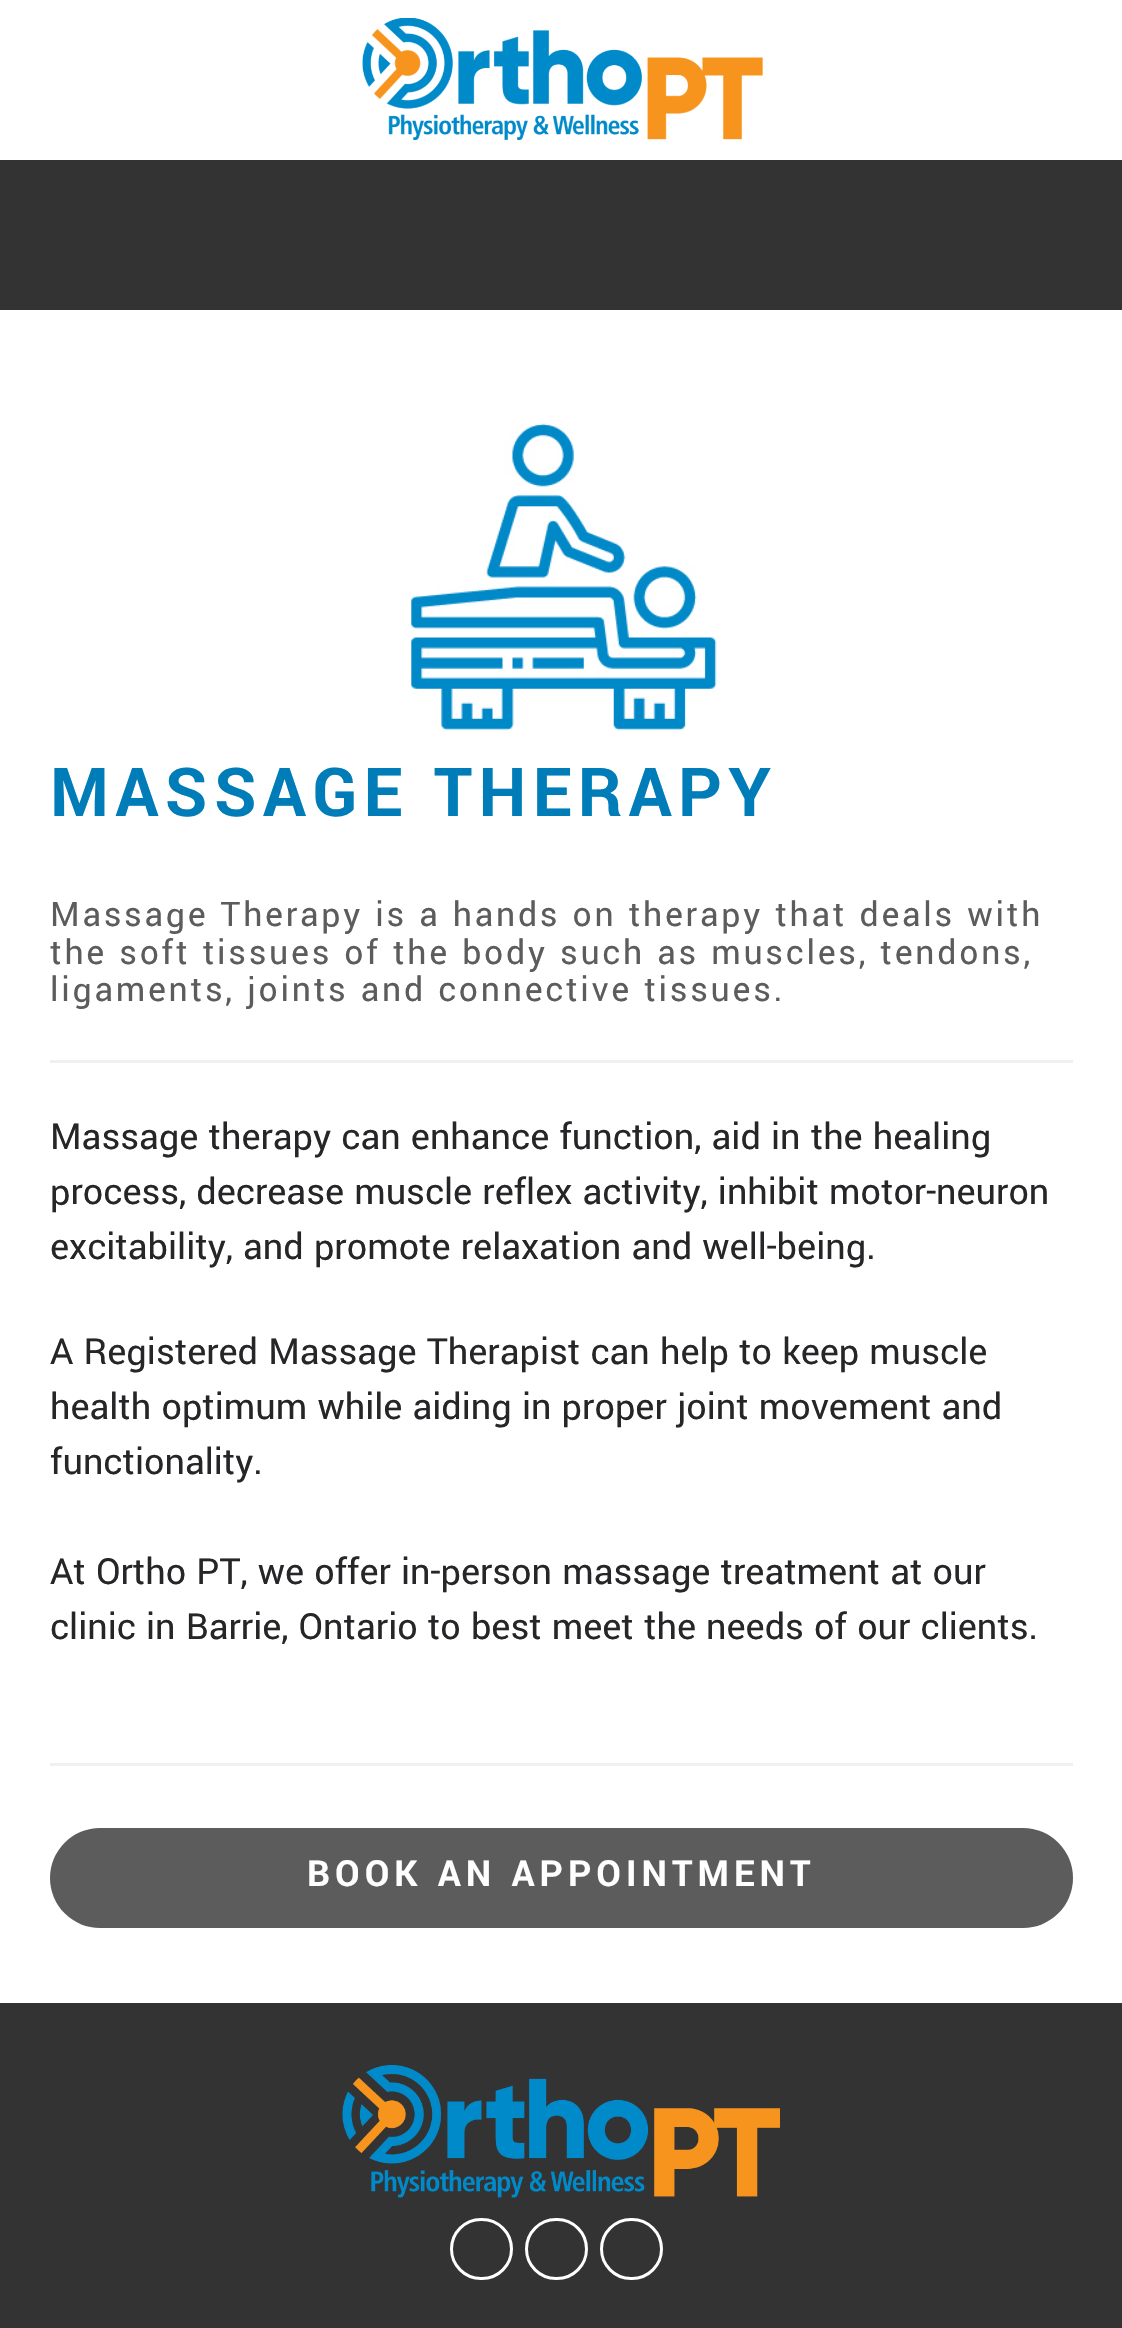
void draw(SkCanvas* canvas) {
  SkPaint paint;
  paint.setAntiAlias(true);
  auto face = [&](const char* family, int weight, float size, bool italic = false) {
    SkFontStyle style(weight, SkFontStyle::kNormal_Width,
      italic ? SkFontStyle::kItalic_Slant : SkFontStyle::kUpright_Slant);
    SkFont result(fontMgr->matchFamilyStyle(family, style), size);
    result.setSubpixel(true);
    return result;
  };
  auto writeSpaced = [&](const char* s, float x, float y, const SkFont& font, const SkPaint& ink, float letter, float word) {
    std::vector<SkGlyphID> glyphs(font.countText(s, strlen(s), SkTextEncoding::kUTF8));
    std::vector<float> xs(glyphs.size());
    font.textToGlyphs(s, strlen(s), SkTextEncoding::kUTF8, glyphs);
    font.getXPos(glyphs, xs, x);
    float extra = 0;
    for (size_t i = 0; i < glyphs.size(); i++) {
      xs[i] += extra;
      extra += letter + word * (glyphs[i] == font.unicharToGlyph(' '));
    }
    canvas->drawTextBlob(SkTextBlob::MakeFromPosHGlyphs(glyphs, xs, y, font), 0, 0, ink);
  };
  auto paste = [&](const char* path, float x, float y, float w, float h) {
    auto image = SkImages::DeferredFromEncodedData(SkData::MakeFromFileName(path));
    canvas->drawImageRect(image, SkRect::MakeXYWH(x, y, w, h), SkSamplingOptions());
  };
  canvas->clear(0xff333333);
  paint.setColor(0xffffffff);
  canvas->drawRect(SkRect::MakeXYWH(0, 0, 1122, 160), paint);
  paste("img/1.png", 362, 18, 401, 122);
  canvas->drawRect(SkRect::MakeXYWH(0, 310, 1122, 1693), paint);
  paste("img/2.png", 410, 423, 307, 308);
  paint.setColor(0xfff0f0f0);
  canvas->drawRect(SkRect::MakeXYWH(50, 1060, 1023, 3), paint);
  canvas->drawRect(SkRect::MakeXYWH(50, 1763, 1023, 3), paint);
  paint.setColor(0xff5c5c5c);
  canvas->drawRoundRect(SkRect::MakeXYWH(50, 1828, 1023, 100), 50, 50, paint);
  paste("img/3.png", 342, 2065, 438, 133);
  paint.setStroke(true);
  paint.setStrokeWidth(3);
  paint.setColor(0xffffffff);
  canvas->drawRoundRect(SkRect::MakeXYWH(451.5f, 2219.5f, 60, 59), 29.5f, 29.5f, paint);
  canvas->drawRoundRect(SkRect::MakeXYWH(526.5f, 2219.5f, 60, 59), 29.5f, 29.5f, paint);
  canvas->drawRoundRect(SkRect::MakeXYWH(601.5f, 2219.5f, 60, 59), 29.5f, 29.5f, paint);
  auto f0 = face("Yantramanav", 700, 75);
  paint.setStroke(false);
  paint.setColor(0xff007db8);
  writeSpaced("MASSAGE THERAPY", 50, 816, f0, paint, 6.25f, 0);
  auto f1 = face("Yantramanav", 400, 37.5f);
  paint.setColor(0xff5c5c5c);
  {
    const struct { const char* s; float x, y; } items[] = {
      {"Massage Therapy is a hands on therapy that deals with", 50, 926},
      {"the soft tissues of the body such as muscles, tendons,", 50, 964},
      {"ligaments, joints and connective tissues.", 50, 1001},
    };
    for (auto [s, x, y] : items) {
      writeSpaced(s, x, y, f1, paint, 2.75f, 0);
    }
  }
  auto f2 = face("Yantramanav", 400, 40);
  paint.setColor(0xff262628);
  {
    const struct { const char* s; float x, y; } items[] = {
      {"Massage therapy can enhance function, aid in the healing", 50, 1149},
      {"process, decrease muscle reflex activity, inhibit motor-neuron", 50, 1204},
      {"excitability, and promote relaxation and well-being.", 50, 1259},
      {"A Registered Massage Therapist can help to keep muscle", 50, 1364},
      {"health optimum while aiding in proper joint movement and", 50, 1419},
      {"functionality.", 50, 1474},
      {"At Ortho PT, we offer in-person massage treatment at our", 50, 1584},
      {"clinic in Barrie, Ontario to best meet the needs of our clients.", 50, 1639},
    };
    for (auto [s, x, y] : items) {
      canvas->drawString(s, x, y, f2, paint);
    }
  }
  auto f3 = face("Yantramanav", 700, 40);
  paint.setColor(0xffffffff);
  writeSpaced("BOOK AN APPOINTMENT", 307, 1886, f3, paint, 5, 0);
}
